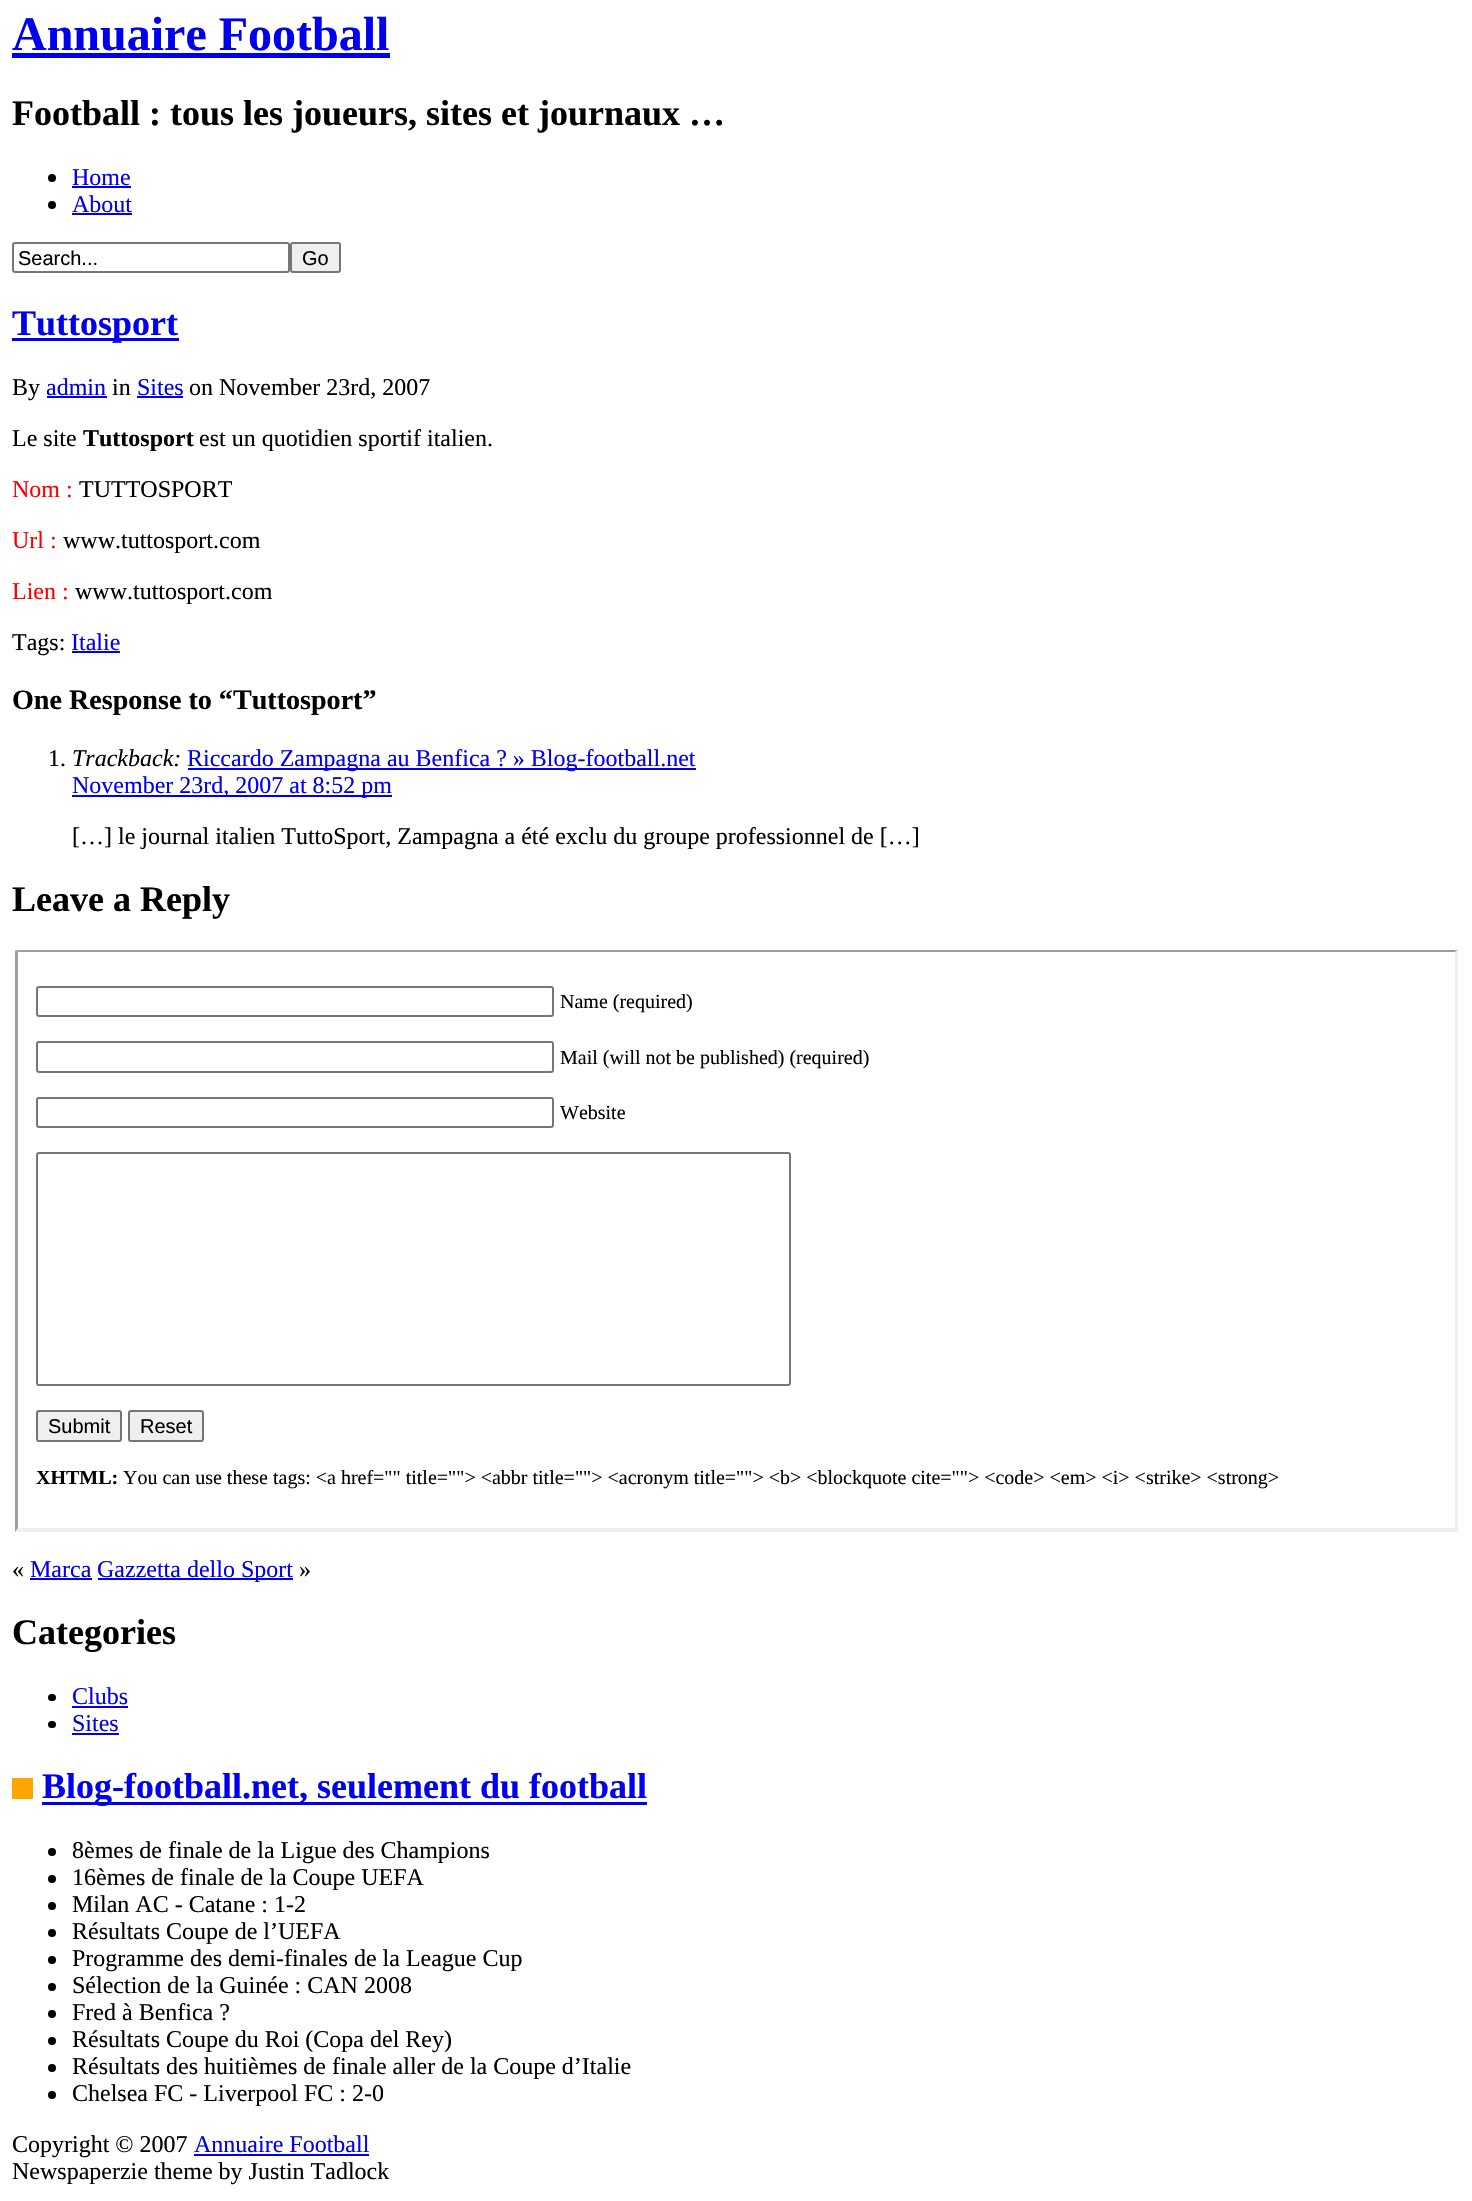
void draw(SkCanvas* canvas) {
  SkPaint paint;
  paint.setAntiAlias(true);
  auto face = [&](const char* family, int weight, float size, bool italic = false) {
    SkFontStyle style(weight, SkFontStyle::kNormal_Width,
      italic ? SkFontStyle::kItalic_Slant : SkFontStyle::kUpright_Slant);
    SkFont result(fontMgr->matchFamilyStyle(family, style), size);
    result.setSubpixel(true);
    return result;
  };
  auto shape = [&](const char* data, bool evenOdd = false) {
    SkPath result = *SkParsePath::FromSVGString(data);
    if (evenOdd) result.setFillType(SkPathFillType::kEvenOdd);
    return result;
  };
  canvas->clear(0xffffffff);
  paint.setColor(0xff0000ee);
  canvas->drawRect(SkRect::MakeXYWH(12, 53, 378, 5), paint);
  paint.setColor(0xff000000);
  canvas->drawCircle(52, 178, 4, paint);
  paint.setColor(0xff0000ee);
  canvas->drawRect(SkRect::MakeXYWH(72, 186, 59, 2), paint);
  paint.setColor(0xff000000);
  canvas->drawCircle(52, 205, 4, paint);
  paint.setColor(0xff0000ee);
  canvas->drawRect(SkRect::MakeXYWH(72, 213, 60, 2), paint);
  paint.setStroke(true);
  paint.setStrokeWidth(2);
  paint.setColor(0xff767676);
  canvas->drawRoundRect(SkRect::MakeXYWH(13, 243, 276, 29), 2, 2, paint);
  paint.setStroke(false);
  paint.setColor(0xffefefef);
  canvas->drawRoundRect(SkRect::MakeXYWH(291, 243, 49, 29), 2, 2, paint);
  paint.setStroke(true);
  paint.setColor(0xff767676);
  canvas->drawRoundRect(SkRect::MakeXYWH(291, 243, 49, 29), 2, 2, paint);
  paint.setStroke(false);
  {
    const struct { float x, y, w, h; SkColor color; } items[] = {
      {12, 338, 167, 3, 0xff0000ee},
      {47, 396, 60, 2, 0xff0000ee},
      {137, 396, 46, 2, 0xff0000ee},
      {72, 651, 48, 2, 0xff0000ee},
      {188, 768, 508, 2, 0xff0000ee},
      {72, 795, 320, 2, 0xff0000ee},
    };
    for (auto [x, y, w, h, color] : items) {
      paint.setColor(color);
      canvas->drawRect(SkRect::MakeXYWH(x, y, w, h), paint);
    }
  }
  paint.setColor(0xff9f9f9f);
  canvas->drawPath(shape("M15 950H1458L1455 952H18Z"), paint);
  paint.setColor(0xffefefef);
  canvas->drawPath(shape("M1458 950V1532L1455 1528V952Z"), paint);
  canvas->drawPath(shape("M1458 1532H15L18 1528H1455Z"), paint);
  paint.setColor(0xff9f9f9f);
  canvas->drawPath(shape("M15 1532V950L18 952V1528Z"), paint);
  paint.setStroke(true);
  paint.setColor(0xff767676);
  canvas->drawRoundRect(SkRect::MakeXYWH(37, 987, 516, 29), 2, 2, paint);
  canvas->drawRoundRect(SkRect::MakeXYWH(37, 1042, 516, 30), 2, 2, paint);
  canvas->drawRoundRect(SkRect::MakeXYWH(37, 1098, 516, 29), 2, 2, paint);
  canvas->drawRoundRect(SkRect::MakeXYWH(37, 1153, 753, 232), 2, 2, paint);
  paint.setStroke(false);
  paint.setColor(0xffefefef);
  canvas->drawRoundRect(SkRect::MakeXYWH(37, 1411, 84, 30), 2, 2, paint);
  paint.setStroke(true);
  paint.setColor(0xff767676);
  canvas->drawRoundRect(SkRect::MakeXYWH(37, 1411, 84, 30), 2, 2, paint);
  paint.setStroke(false);
  paint.setColor(0xffefefef);
  canvas->drawRoundRect(SkRect::MakeXYWH(129, 1411, 74, 30), 2, 2, paint);
  paint.setStroke(true);
  paint.setColor(0xff767676);
  canvas->drawRoundRect(SkRect::MakeXYWH(129, 1411, 74, 30), 2, 2, paint);
  paint.setStroke(false);
  paint.setColor(0xff0000ee);
  canvas->drawRect(SkRect::MakeXYWH(30, 1578, 62, 2), paint);
  canvas->drawRect(SkRect::MakeXYWH(98, 1578, 195, 2), paint);
  paint.setColor(0xff000000);
  canvas->drawRoundRect(SkRect::MakeXYWH(48, 1694, 8, 7), 3.5f, 3.5f, paint);
  paint.setColor(0xff0000ee);
  canvas->drawRect(SkRect::MakeXYWH(72, 1706, 56, 2), paint);
  paint.setColor(0xff000000);
  canvas->drawRoundRect(SkRect::MakeXYWH(48, 1721, 8, 7), 3.5f, 3.5f, paint);
  {
    const struct { float x, y, w, h; SkColor color; } items[] = {
      {72, 1733, 47, 2, 0xff0000ee},
      {12, 1778, 21, 21, 0xffffa500},
      {42, 1802, 605, 3, 0xff0000ee},
    };
    for (auto [x, y, w, h, color] : items) {
      paint.setColor(color);
      canvas->drawRect(SkRect::MakeXYWH(x, y, w, h), paint);
    }
  }
  paint.setColor(0xff000000);
  canvas->drawCircle(52, 1852, 4, paint);
  canvas->drawCircle(52, 1879, 4, paint);
  canvas->drawCircle(52, 1906, 4, paint);
  canvas->drawCircle(52, 1933, 4, paint);
  canvas->drawCircle(52, 1960, 4, paint);
  canvas->drawCircle(52, 1987, 4, paint);
  canvas->drawCircle(52, 2014, 4, paint);
  canvas->drawCircle(52, 2041, 4, paint);
  canvas->drawCircle(52, 2068, 4, paint);
  canvas->drawCircle(52, 2095, 4, paint);
  paint.setColor(0xff0000ee);
  canvas->drawRect(SkRect::MakeXYWH(194, 2154, 175, 2), paint);
  auto f0 = face("Liberation Serif", 700, 48);
  canvas->drawString("Annuaire Football", 12, 50, f0, paint);
  auto f1 = face("Liberation Serif", 700, 36);
  paint.setColor(0xff000000);
  canvas->drawString("Football : tous les joueurs, sites et journaux …", 12, 125, f1, paint);
  auto f2 = face("Liberation Serif", 400, 24);
  paint.setColor(0xff0000ee);
  canvas->drawString("Home", 72, 185, f2, paint);
  canvas->drawString("About", 72, 212, f2, paint);
  auto f3 = face("Liberation Sans", 400, 20);
  paint.setColor(0xff000000);
  canvas->drawString("Search...", 18, 265, f3, paint);
  canvas->drawString("Go", 302, 265, f3, paint);
  paint.setColor(0xff0000ee);
  canvas->drawString("Tuttosport", 12, 335, f1, paint);
  paint.setColor(0xff000000);
  canvas->drawString("By", 12, 395, f2, paint);
  paint.setColor(0xff0000ee);
  canvas->drawString("admin", 46, 395, f2, paint);
  paint.setColor(0xff000000);
  canvas->drawString("in", 112, 395, f2, paint);
  paint.setColor(0xff0000ee);
  canvas->drawString("Sites", 137, 395, f2, paint);
  paint.setColor(0xff000000);
  canvas->drawString("on November 23rd, 2007", 189, 395, f2, paint);
  canvas->drawString("Le site", 12, 446, f2, paint);
  auto f4 = face("Liberation Serif", 700, 24);
  canvas->drawString("Tuttosport", 83, 446, f4, paint);
  canvas->drawString("est un quotidien sportif italien.", 199, 446, f2, paint);
  paint.setColor(0xffff0000);
  canvas->drawString("Nom :", 12, 497, f2, paint);
  paint.setColor(0xff000000);
  canvas->drawString("TUTTOSPORT", 79, 497, f2, paint);
  paint.setColor(0xffff0000);
  canvas->drawString("Url :", 12, 548, f2, paint);
  paint.setColor(0xff000000);
  canvas->drawString("www.tuttosport.com", 63, 548, f2, paint);
  paint.setColor(0xffff0000);
  canvas->drawString("Lien :", 12, 599, f2, paint);
  paint.setColor(0xff000000);
  canvas->drawString("www.tuttosport.com", 75, 599, f2, paint);
  canvas->drawString("Tags:", 12, 650, f2, paint);
  paint.setColor(0xff0000ee);
  canvas->drawString("Italie", 71, 650, f2, paint);
  auto f5 = face("Liberation Serif", 700, 28.1f);
  paint.setColor(0xff000000);
  canvas->drawString("One Response to “Tuttosport”", 12, 709, f5, paint);
  canvas->drawString("1.", 48, 766, f2, paint);
  auto f6 = face("Liberation Serif", 400, 24, true);
  canvas->drawString("Trackback:", 72, 766, f6, paint);
  paint.setColor(0xff0000ee);
  canvas->drawString("Riccardo Zampagna au Benfica ? » Blog-football.net", 187, 766, f2, paint);
  canvas->drawString("November 23rd, 2007 at 8:52 pm", 72, 793, f2, paint);
  paint.setColor(0xff000000);
  canvas->drawString("[…] le journal italien TuttoSport, Zampagna a été exclu du groupe professionnel de […]", 72, 844, f2, paint);
  canvas->drawString("Leave a Reply", 12, 911, f1, paint);
  auto f7 = face("Liberation Serif", 400, 20);
  {
    const struct { const char* s; float x, y; } items[] = {
      {"Name (required)", 560, 1008},
      {"Mail (will not be published) (required)", 560, 1064},
      {"Website", 560, 1119},
    };
    for (auto [s, x, y] : items) {
      canvas->drawString(s, x, y, f7, paint);
    }
  }
  canvas->drawString("Submit", 48, 1433, f3, paint);
  canvas->drawString("Reset", 140, 1433, f3, paint);
  auto f8 = face("Liberation Serif", 700, 20);
  canvas->drawString("XHTML:", 36, 1484, f8, paint);
  canvas->drawString("You can use these tags: <a href=\"\" title=\"\"> <abbr title=\"\"> <acronym title=\"\"> <b> <blockquote cite=\"\"> <code> <em> <i> <strike> <strong>", 123, 1484, f7, paint);
  canvas->drawString("«", 12, 1577, f2, paint);
  paint.setColor(0xff0000ee);
  canvas->drawString("Marca", 30, 1577, f2, paint);
  canvas->drawString("Gazzetta dello Sport", 97, 1577, f2, paint);
  paint.setColor(0xff000000);
  canvas->drawString("»", 299, 1577, f2, paint);
  canvas->drawString("Categories", 12, 1644, f1, paint);
  paint.setColor(0xff0000ee);
  canvas->drawString("Clubs", 72, 1704, f2, paint);
  canvas->drawString("Sites", 72, 1731, f2, paint);
  canvas->drawString("Blog-football.net, seulement du football", 42, 1798, f1, paint);
  paint.setColor(0xff000000);
  {
    const struct { const char* s; float x, y; } items[] = {
      {"8èmes de finale de la Ligue des Champions", 72, 1858},
      {"16èmes de finale de la Coupe UEFA", 72, 1885},
      {"Milan AC - Catane : 1-2", 72, 1912},
      {"Résultats Coupe de l’UEFA", 72, 1939},
      {"Programme des demi-finales de la League Cup", 72, 1966},
      {"Sélection de la Guinée : CAN 2008", 72, 1993},
      {"Fred à Benfica ?", 72, 2020},
      {"Résultats Coupe du Roi (Copa del Rey)", 72, 2047},
      {"Résultats des huitièmes de finale aller de la Coupe d’Italie", 72, 2074},
      {"Chelsea FC - Liverpool FC : 2-0", 72, 2101},
      {"Copyright © 2007", 12, 2152},
    };
    for (auto [s, x, y] : items) {
      canvas->drawString(s, x, y, f2, paint);
    }
  }
  paint.setColor(0xff0000ee);
  canvas->drawString("Annuaire Football", 194, 2152, f2, paint);
  paint.setColor(0xff000000);
  canvas->drawString("Newspaperzie theme by Justin Tadlock", 12, 2179, f2, paint);
}
